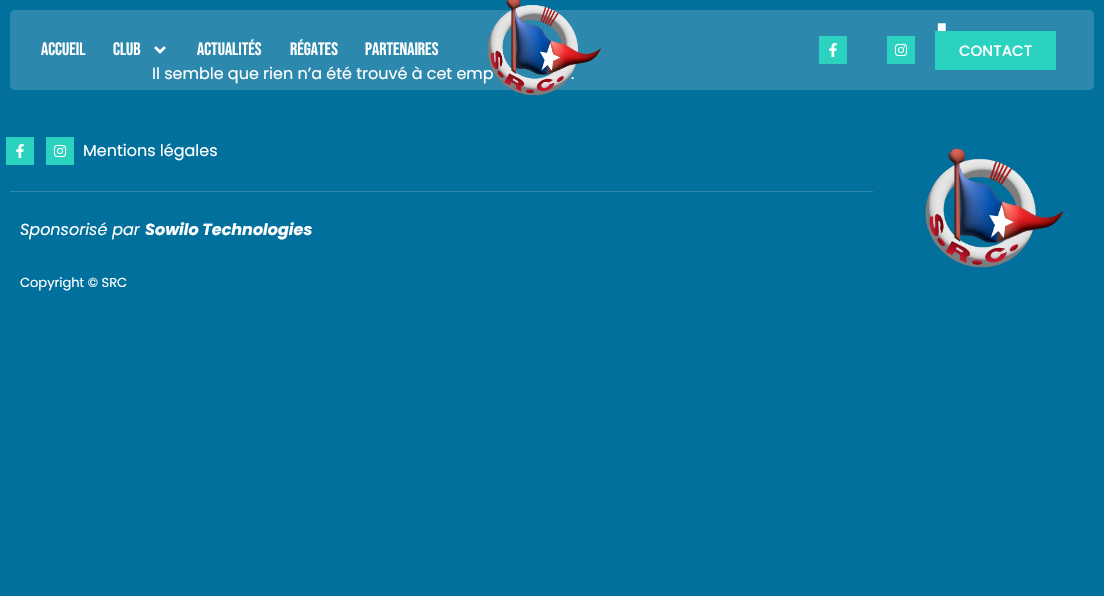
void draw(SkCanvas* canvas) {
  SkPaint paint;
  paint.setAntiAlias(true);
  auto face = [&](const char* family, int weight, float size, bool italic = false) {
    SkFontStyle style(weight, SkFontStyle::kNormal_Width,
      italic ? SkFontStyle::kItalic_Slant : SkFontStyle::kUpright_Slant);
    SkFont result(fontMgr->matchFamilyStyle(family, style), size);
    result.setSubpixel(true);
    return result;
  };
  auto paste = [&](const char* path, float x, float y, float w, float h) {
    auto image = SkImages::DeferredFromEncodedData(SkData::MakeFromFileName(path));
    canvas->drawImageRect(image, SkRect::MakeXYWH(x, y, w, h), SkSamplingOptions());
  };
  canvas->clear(0xff02709c);
  paint.setColor(0xff2d88ad);
  canvas->drawRect(SkRect::MakeXYWH(10, 191, 863, 1), paint);
  paint.setColor(0xff2ad2bf);
  canvas->drawRect(SkRect::MakeXYWH(6, 137, 28, 28), paint);
  paste("img/3.png", 16, 144, 8, 14);
  canvas->drawRect(SkRect::MakeXYWH(46, 137, 28, 28), paint);
  paste("img/4.png", 53, 144, 14, 14);
  paste("img/5.png", 925, 148, 139, 120);
  auto f0 = face("Bebas Neue", 400, 72);
  paint.setColor(0xffffffff);
  canvas->drawString(".", 935, 31, f0, paint);
  auto f1 = face("Poppins", 400, 16);
  canvas->drawString("Il semble que rien n’a été trouvé à cet emp", 152, 79, f1, paint);
  canvas->drawString(".", 571, 79, f1, paint);
  paint.setColor(0x2bffffff);
  canvas->drawRoundRect(SkRect::MakeXYWH(10, 10, 1084, 80), 5, 5, paint);
  auto f2 = face("Bebas Neue", 400, 18);
  paint.setColor(0xffffffff);
  canvas->drawString("ACCUEIL", 41, 55, f2, paint);
  canvas->drawString("CLUB", 113, 55, f2, paint);
  paste("img/1.png", 154, 46, 12, 8);
  {
    const struct { const char* s; float x, y; } items[] = {
      {"ACTUALITÉS", 197, 55},
      {"RÉGATES", 290, 55},
      {"PARTENAIRES", 365, 55},
    };
    for (auto [s, x, y] : items) {
      canvas->drawString(s, x, y, f2, paint);
    }
  }
  paste("img/2.png", 487, 0, 114, 96);
  paint.setColor(0xff2ad2bf);
  canvas->drawRect(SkRect::MakeXYWH(819, 36, 28, 28), paint);
  paste("img/3.png", 829, 43, 8, 14);
  canvas->drawRect(SkRect::MakeXYWH(887, 36, 28, 28), paint);
  paste("img/4.png", 894, 43, 14, 14);
  canvas->drawRect(SkRect::MakeXYWH(935, 31, 121, 39), paint);
  auto f3 = face("Poppins", 500, 15);
  paint.setColor(0xffffffff);
  canvas->drawString("CONTACT", 959, 56, f3, paint);
  canvas->drawString("Mentions légales", 83, 156, f1, paint);
  auto f4 = face("Poppins", 400, 16, true);
  canvas->drawString("Sponsorisé par", 20, 235, f4, paint);
  auto f5 = face("Poppins", 700, 16, true);
  canvas->drawString("Sowilo Technologies", 145, 235, f5, paint);
  auto f6 = face("Poppins", 400, 13);
  canvas->drawString("Copyright © SRC", 20, 287, f6, paint);
}
